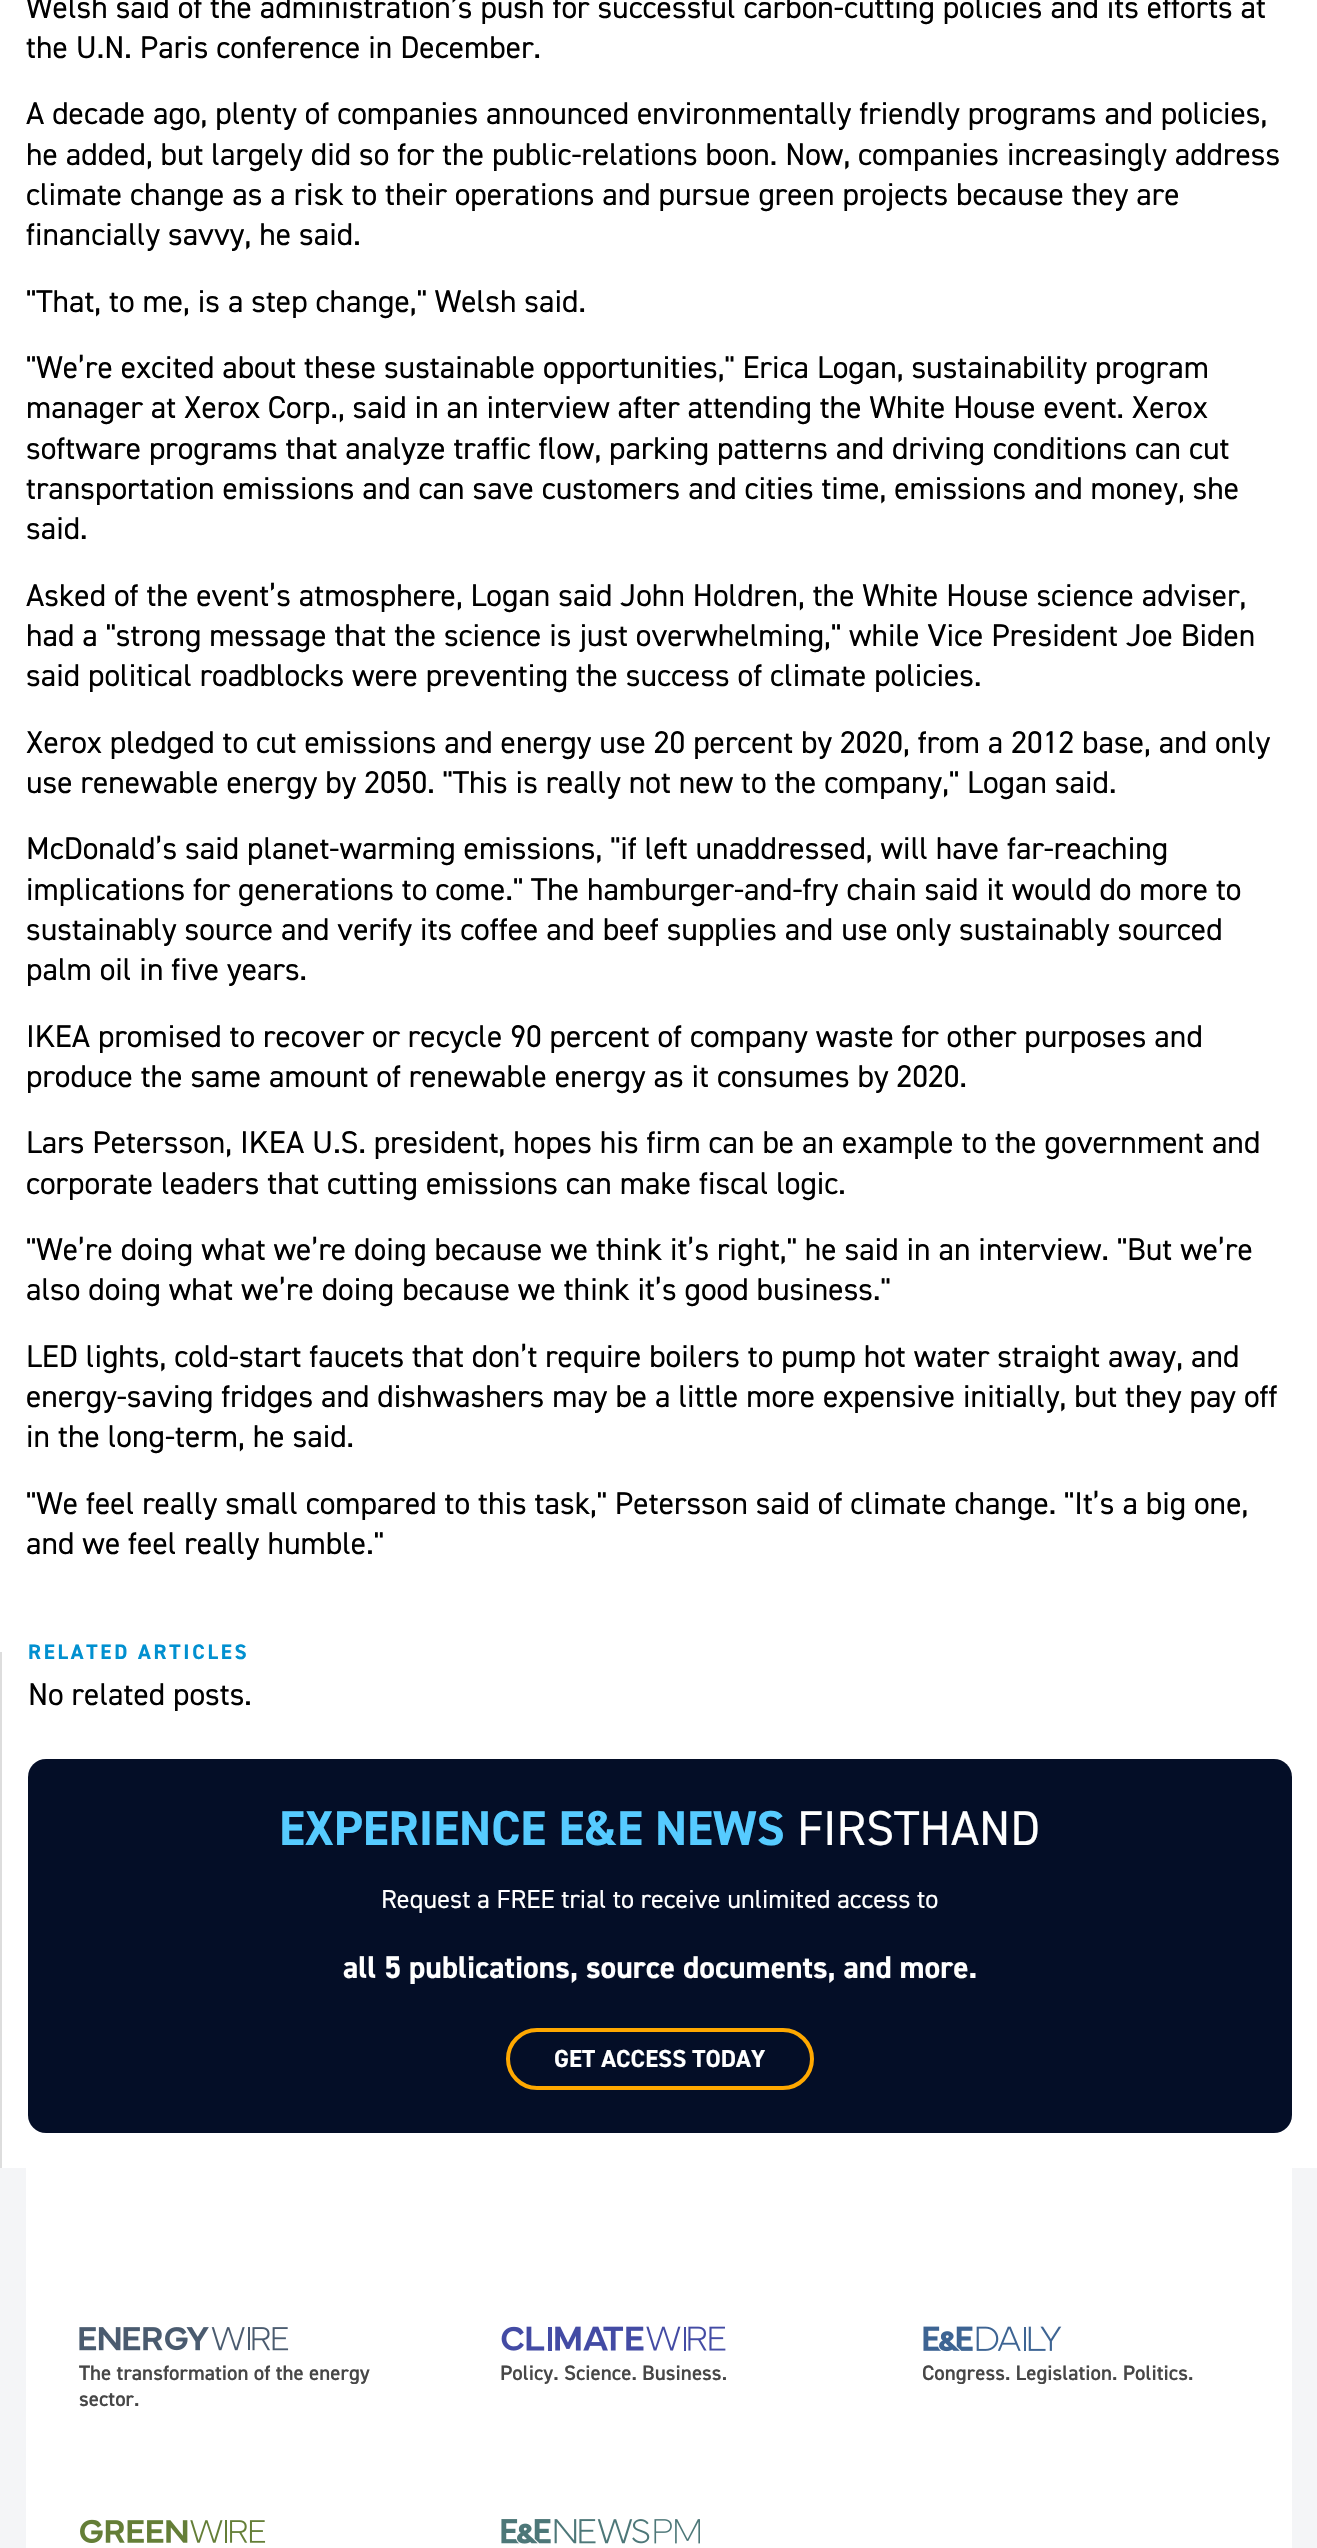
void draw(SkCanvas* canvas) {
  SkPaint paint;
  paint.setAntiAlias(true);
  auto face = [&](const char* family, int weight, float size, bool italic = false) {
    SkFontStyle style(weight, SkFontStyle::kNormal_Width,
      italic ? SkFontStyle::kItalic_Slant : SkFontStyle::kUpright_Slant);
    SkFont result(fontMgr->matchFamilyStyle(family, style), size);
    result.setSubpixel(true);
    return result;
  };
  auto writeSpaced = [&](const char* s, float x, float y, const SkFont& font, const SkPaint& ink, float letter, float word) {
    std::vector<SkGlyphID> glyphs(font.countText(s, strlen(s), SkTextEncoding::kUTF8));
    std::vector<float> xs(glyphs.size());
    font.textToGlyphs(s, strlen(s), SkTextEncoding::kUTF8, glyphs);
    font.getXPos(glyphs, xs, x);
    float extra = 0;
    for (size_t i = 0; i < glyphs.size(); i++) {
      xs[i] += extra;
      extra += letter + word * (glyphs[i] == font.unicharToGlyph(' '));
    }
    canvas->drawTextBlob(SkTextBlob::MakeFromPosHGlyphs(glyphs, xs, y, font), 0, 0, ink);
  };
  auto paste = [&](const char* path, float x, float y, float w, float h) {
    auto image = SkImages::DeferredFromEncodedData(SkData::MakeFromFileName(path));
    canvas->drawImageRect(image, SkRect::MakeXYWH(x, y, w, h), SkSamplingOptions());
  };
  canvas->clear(0xffffffff);
  paint.setColor(0xffdddddd);
  canvas->drawRect(SkRect::MakeXYWH(0, 1652, 2, 516), paint);
  paint.setColor(0xff040e27);
  canvas->drawRoundRect(SkRect::MakeXYWH(28, 1759, 1264, 374), 18, 18, paint);
  paint.setStroke(true);
  paint.setStrokeWidth(4);
  paint.setColor(0xffffa800);
  canvas->drawRoundRect(SkRect::MakeXYWH(508, 2030, 304, 58), 29, 29, paint);
  paint.setStroke(false);
  paint.setColor(0xfff4f5f7);
  canvas->drawRect(SkRect::MakeXYWH(0, 2168, 1317, 380), paint);
  paint.setColor(0xffffffff);
  canvas->drawRect(SkRect::MakeXYWH(26, 2168, 1266, 380), paint);
  paste("img/1.png", 79, 2327, 210, 24);
  paste("img/2.png", 501, 2326, 225, 25);
  paste("img/3.png", 923, 2326, 139, 26);
  paste("img/4.png", 80, 2519, 186, 24);
  paste("img/5.png", 501, 2519, 199, 25);
  auto f0 = face("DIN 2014", 400, 31.5f);
  paint.setColor(0xff000000);
  {
    const struct { const char* s; float x, y; } items[] = {
      {"Welsh said of the administration’s push for successful carbon-cutting policies and its efforts at", 26, 18},
      {"the U.N. Paris conference in December.", 26, 58},
      {"A decade ago, plenty of companies announced environmentally friendly programs and policies,", 26, 124},
      {"he added, but largely did so for the public-relations boon. Now, companies increasingly address", 26, 165},
      {"climate change as a risk to their operations and pursue green projects because they are", 26, 205},
      {"financially savvy, he said.", 26, 245},
      {"\"That, to me, is a step change,\" Welsh said.", 26, 312},
      {"\"We’re excited about these sustainable opportunities,\" Erica Logan, sustainability program", 26, 378},
      {"manager at Xerox Corp., said in an interview after attending the White House event. Xerox", 26, 418},
      {"software programs that analyze traffic flow, parking patterns and driving conditions can cut", 26, 459},
      {"transportation emissions and can save customers and cities time, emissions and money, she", 26, 499},
      {"said.", 26, 539},
      {"Asked of the event’s atmosphere, Logan said John Holdren, the White House science adviser,", 26, 606},
      {"had a \"strong message that the science is just overwhelming,\" while Vice President Joe Biden", 26, 646},
      {"said political roadblocks were preventing the success of climate policies.", 26, 686},
      {"Xerox pledged to cut emissions and energy use 20 percent by 2020, from a 2012 base, and only", 26, 753},
      {"use renewable energy by 2050. \"This is really not new to the company,\" Logan said.", 26, 793},
      {"McDonald’s said planet-warming emissions, \"if left unaddressed, will have far-reaching", 26, 859},
      {"implications for generations to come.\" The hamburger-and-fry chain said it would do more to", 26, 900},
      {"sustainably source and verify its coffee and beef supplies and use only sustainably sourced", 26, 940},
      {"palm oil in five years.", 26, 980},
      {"IKEA promised to recover or recycle 90 percent of company waste for other purposes and", 26, 1047},
      {"produce the same amount of renewable energy as it consumes by 2020.", 26, 1087},
      {"Lars Petersson, IKEA U.S. president, hopes his firm can be an example to the government and", 26, 1153},
      {"corporate leaders that cutting emissions can make fiscal logic.", 26, 1194},
      {"\"We’re doing what we’re doing because we think it’s right,\" he said in an interview. \"But we’re", 26, 1260},
      {"also doing what we’re doing because we think it’s good business.\"", 26, 1300},
      {"LED lights, cold-start faucets that don’t require boilers to pump hot water straight away, and", 26, 1367},
      {"energy-saving fridges and dishwashers may be a little more expensive initially, but they pay off", 26, 1407},
      {"in the long-term, he said.", 26, 1447},
      {"\"We feel really small compared to this task,\" Petersson said of climate change. \"It’s a big one,", 26, 1514},
      {"and we feel really humble.\"", 26, 1554},
    };
    for (auto [s, x, y] : items) {
      canvas->drawString(s, x, y, f0, paint);
    }
  }
  auto f1 = face("DIN 2014", 700, 21);
  paint.setColor(0xff0190d0);
  writeSpaced("RELATED ARTICLES", 28, 1659, f1, paint, 2.75f, 0);
  paint.setColor(0xff000000);
  canvas->drawString("No related posts.", 28, 1705, f0, paint);
  auto f2 = face("DIN 2014", 700, 49);
  paint.setColor(0xff56cbff);
  canvas->drawString("EXPERIENCE E&E NEWS", 279, 1845, f2, paint);
  auto f3 = face("DIN 2014", 400, 49);
  paint.setColor(0xffffffff);
  canvas->drawString("FIRSTHAND", 797, 1845, f3, paint);
  auto f4 = face("DIN 2014", 400, 26.25f);
  canvas->drawString("Request a FREE trial to receive unlimited access to", 381, 1908, f4, paint);
  auto f5 = face("DIN 2014", 700, 31.5f);
  canvas->drawString("all 5 publications, source documents, and more.", 343, 1978, f5, paint);
  auto f6 = face("DIN 2014", 700, 24.5f);
  canvas->drawString("GET ACCESS TODAY", 554, 2067, f6, paint);
  auto f7 = face("DIN 2014", 600, 21);
  paint.setColor(0xff474747);
  {
    const struct { const char* s; float x, y; } items[] = {
      {"The transformation of the energy", 79, 2380},
      {"sector.", 79, 2406},
      {"Policy. Science. Business.", 500, 2380},
      {"Congress. Legislation. Politics.", 922, 2380},
    };
    for (auto [s, x, y] : items) {
      canvas->drawString(s, x, y, f7, paint);
    }
  }
}
